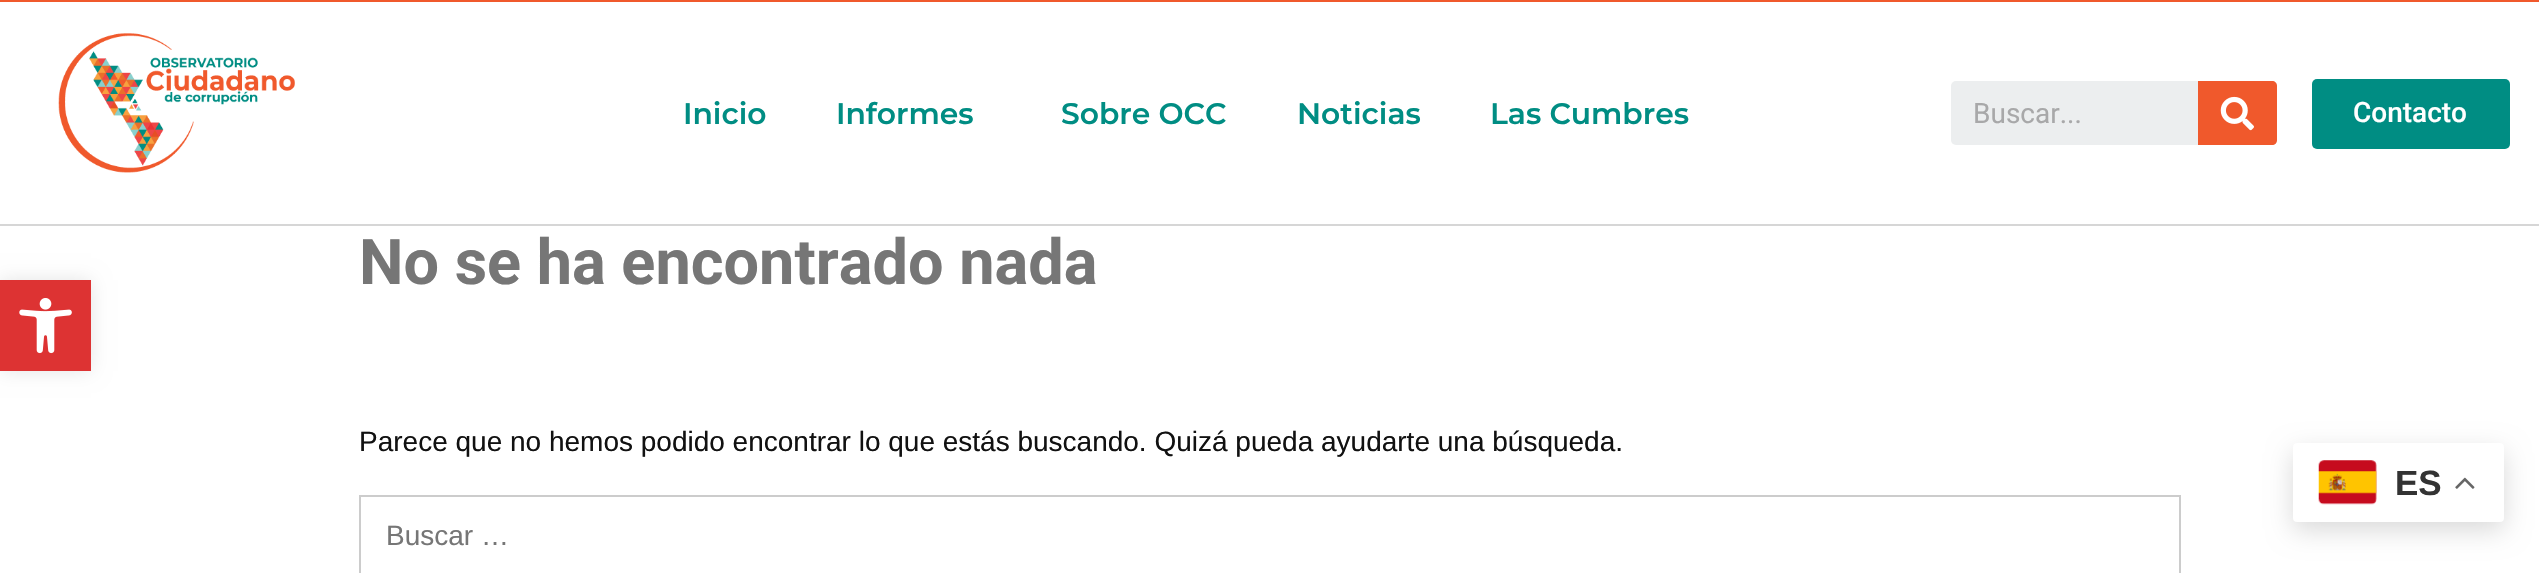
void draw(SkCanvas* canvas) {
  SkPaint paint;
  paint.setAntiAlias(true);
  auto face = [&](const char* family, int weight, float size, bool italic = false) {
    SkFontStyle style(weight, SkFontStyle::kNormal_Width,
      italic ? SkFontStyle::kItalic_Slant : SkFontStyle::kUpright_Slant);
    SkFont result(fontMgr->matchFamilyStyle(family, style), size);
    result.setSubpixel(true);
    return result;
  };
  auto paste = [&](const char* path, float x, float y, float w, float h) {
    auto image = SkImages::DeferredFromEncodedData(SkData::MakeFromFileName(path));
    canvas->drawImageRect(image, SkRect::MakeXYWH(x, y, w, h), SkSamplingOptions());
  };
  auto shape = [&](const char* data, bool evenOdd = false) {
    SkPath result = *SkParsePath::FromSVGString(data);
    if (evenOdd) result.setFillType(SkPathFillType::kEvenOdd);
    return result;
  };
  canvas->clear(0xffffffff);
  paint.setColor(0xfff0592c);
  canvas->drawRect(SkRect::MakeXYWH(0, 0, 2539, 2), paint);
  paint.setColor(0xffd6d6d6);
  canvas->drawRect(SkRect::MakeXYWH(0, 224, 2539, 2), paint);
  paste("img/1.png", 58, 33, 237, 140);
  paint.setColor(0xffeceeef);
  canvas->drawRoundRect(SkRect::MakeXYWH(1951, 81, 326, 64), 5, 5, paint);
  paint.setColor(0xfff0592c);
  canvas->drawPath(shape("M2198 81H2272C2275 81 2277 83 2277 86V140C2277 143 2275 145 2272 145H2198Z"), paint);
  paste("img/2.png", 2220, 96, 34, 35);
  paint.setColor(0xff008d83);
  canvas->drawRoundRect(SkRect::MakeXYWH(2312, 79, 198, 70), 5, 5, paint);
  paint.setColor(0x1a000000);
  paint.setMaskFilter(SkMaskFilter::MakeBlur(kNormal_SkBlurStyle, 9));
  canvas->drawRect(SkRect::MakeXYWH(0, 280, 91, 91), paint);
  paint.setMaskFilter(nullptr);
  paint.setColor(0xffdd3333);
  canvas->drawRect(SkRect::MakeXYWH(0, 280, 91, 91), paint);
  paste("img/3.png", 19, 298, 53, 56);
  paint.setStroke(true);
  paint.setStrokeWidth(2);
  paint.setColor(0xffcccccc);
  canvas->drawRect(SkRect::MakeXYWH(360, 496, 1820, 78), paint);
  paint.setStroke(false);
  paint.setColor(0x26000000);
  paint.setMaskFilter(SkMaskFilter::MakeBlur(kNormal_SkBlurStyle, 13));
  canvas->drawRoundRect(SkRect::MakeXYWH(2293, 452, 211, 78), 4, 4, paint);
  paint.setMaskFilter(nullptr);
  paint.setColor(0xffffffff);
  canvas->drawRoundRect(SkRect::MakeXYWH(2293, 443, 211, 79), 4, 4, paint);
  paste("img/4.png", 2318, 460, 59, 45);
  paste("img/5.png", 2455, 477, 20, 12);
  auto f0 = face("Montserrat", 600, 29.75f);
  paint.setColor(0xff008d83);
  {
    const struct { const char* s; float x, y; } items[] = {
      {"Inicio", 683, 124},
      {"Informes", 836, 124},
      {"Sobre OCC", 1061, 124},
      {"Noticias", 1297, 124},
      {"Las Cumbres", 1490, 124},
    };
    for (auto [s, x, y] : items) {
      canvas->drawString(s, x, y, f0, paint);
    }
  }
  auto f1 = face("Roboto", 400, 28);
  paint.setColor(0xffa8a8a9);
  canvas->drawString("Buscar...", 1973, 123, f1, paint);
  auto f2 = face("Roboto", 500, 28);
  paint.setColor(0xffffffff);
  canvas->drawString("Contacto", 2353, 122, f2, paint);
  auto f3 = face("Roboto", 700, 63);
  paint.setColor(0xff767676);
  canvas->drawString("No se ha encontrado nada", 359, 284, f3, paint);
  auto f4 = face("Liberation Sans", 400, 28);
  paint.setColor(0xff111111);
  canvas->drawString("Parece que no hemos podido encontrar lo que estás buscando. Quizá pueda ayudarte una búsqueda.", 359, 451, f4, paint);
  paint.setColor(0xff767676);
  canvas->drawString("Buscar …", 386, 545, f4, paint);
  auto f5 = face("Liberation Sans", 700, 35);
  paint.setColor(0xff333333);
  canvas->drawString("ES", 2395, 495, f5, paint);
}
